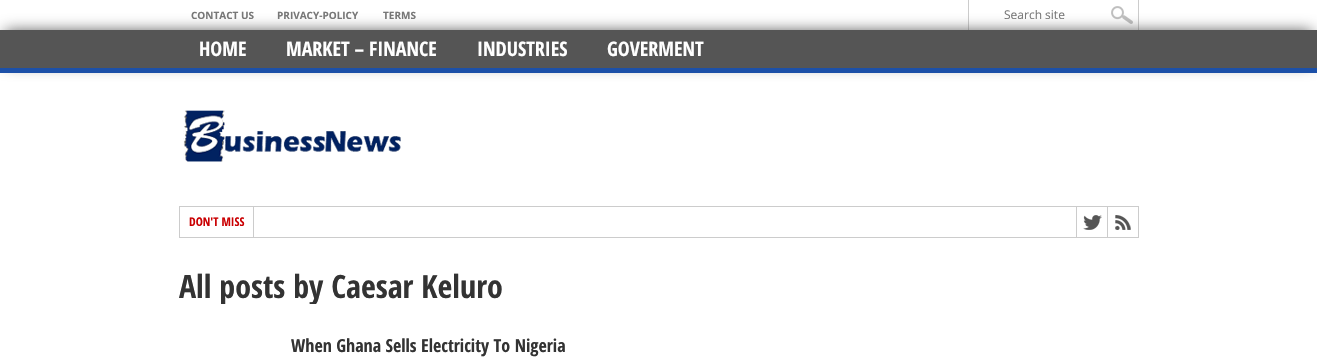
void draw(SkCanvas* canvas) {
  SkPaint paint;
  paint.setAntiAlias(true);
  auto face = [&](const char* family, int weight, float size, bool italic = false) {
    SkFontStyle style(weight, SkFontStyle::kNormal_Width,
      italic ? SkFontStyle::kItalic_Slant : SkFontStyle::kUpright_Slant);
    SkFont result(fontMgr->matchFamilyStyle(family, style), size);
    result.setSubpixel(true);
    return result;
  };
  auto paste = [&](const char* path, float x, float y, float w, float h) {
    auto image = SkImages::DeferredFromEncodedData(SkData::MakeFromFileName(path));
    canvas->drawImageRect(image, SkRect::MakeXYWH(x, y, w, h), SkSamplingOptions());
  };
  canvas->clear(0xffffffff);
  paint.setColor(0xffcccccc);
  canvas->drawRect(SkRect::MakeXYWH(1138, 0, 1, 30), paint);
  canvas->drawRect(SkRect::MakeXYWH(968, 0, 1, 30), paint);
  paste("img/1.png", 1111, 6, 22, 18);
  paint.setColor(0xff555555);
  paint.setMaskFilter(SkMaskFilter::MakeBlur(kNormal_SkBlurStyle, 7.5f));
  canvas->drawRect(SkRect::MakeXYWH(5, 31, 1307, 33), paint);
  paint.setMaskFilter(nullptr);
  canvas->drawRect(SkRect::MakeXYWH(0, 30, 1317, 38), paint);
  paint.setColor(0xff1c50a8);
  canvas->drawRect(SkRect::MakeXYWH(0, 68, 1317, 5), paint);
  paste("img/2.png", 183, 110, 218, 52);
  paint.setStroke(true);
  paint.setStrokeWidth(1);
  paint.setColor(0xffcccccc);
  canvas->drawRect(SkRect::MakeXYWH(179.5f, 206.5f, 959, 31), paint);
  paint.setStroke(false);
  canvas->drawRect(SkRect::MakeXYWH(253, 207, 1, 30), paint);
  canvas->drawRect(SkRect::MakeXYWH(1076, 207, 1, 30), paint);
  paste("img/3.png", 1083, 215, 19, 15);
  canvas->drawRect(SkRect::MakeXYWH(1107, 207, 1, 30), paint);
  paste("img/4.png", 1115, 215, 16, 15);
  auto f0 = face("Open Sans", 700, 10);
  paint.setColor(0xff777777);
  {
    const struct { const char* s; float x, y; } items[] = {
      {"CONTACT US", 191, 19},
      {"PRIVACY-POLICY", 277, 19},
      {"TERMS", 383, 19},
    };
    for (auto [s, x, y] : items) {
      canvas->drawString(s, x, y, f0, paint);
    }
  }
  auto f1 = face("Open Sans", 400, 12);
  canvas->drawString("Search site", 1004, 19, f1, paint);
  auto f2 = face("Open Sans Condensed", 700, 20);
  paint.setColor(0xffffffff);
  {
    const struct { const char* s; float x, y; } items[] = {
      {"HOME", 199, 56},
      {"MARKET – FINANCE", 286, 56},
      {"INDUSTRIES", 477, 56},
      {"GOVERMENT", 607, 56},
    };
    for (auto [s, x, y] : items) {
      canvas->drawString(s, x, y, f2, paint);
    }
  }
  auto f3 = face("Open Sans Condensed", 700, 12);
  paint.setColor(0xffca0002);
  canvas->drawString("DON'T MISS", 189, 226, f3, paint);
  canvas->save();
  canvas->clipRect(SkRect::MakeXYWH(179, 268, 620, 36));
  auto f4 = face("Open Sans Condensed", 700, 32);
  paint.setColor(0xff333333);
  canvas->drawString("All posts by Caesar Keluro", 179, 298, f4, paint);
  canvas->restore();
  auto f5 = face("Open Sans Condensed", 700, 18);
  canvas->drawString("When Ghana Sells Electricity To Nigeria", 291, 352, f5, paint);
}
